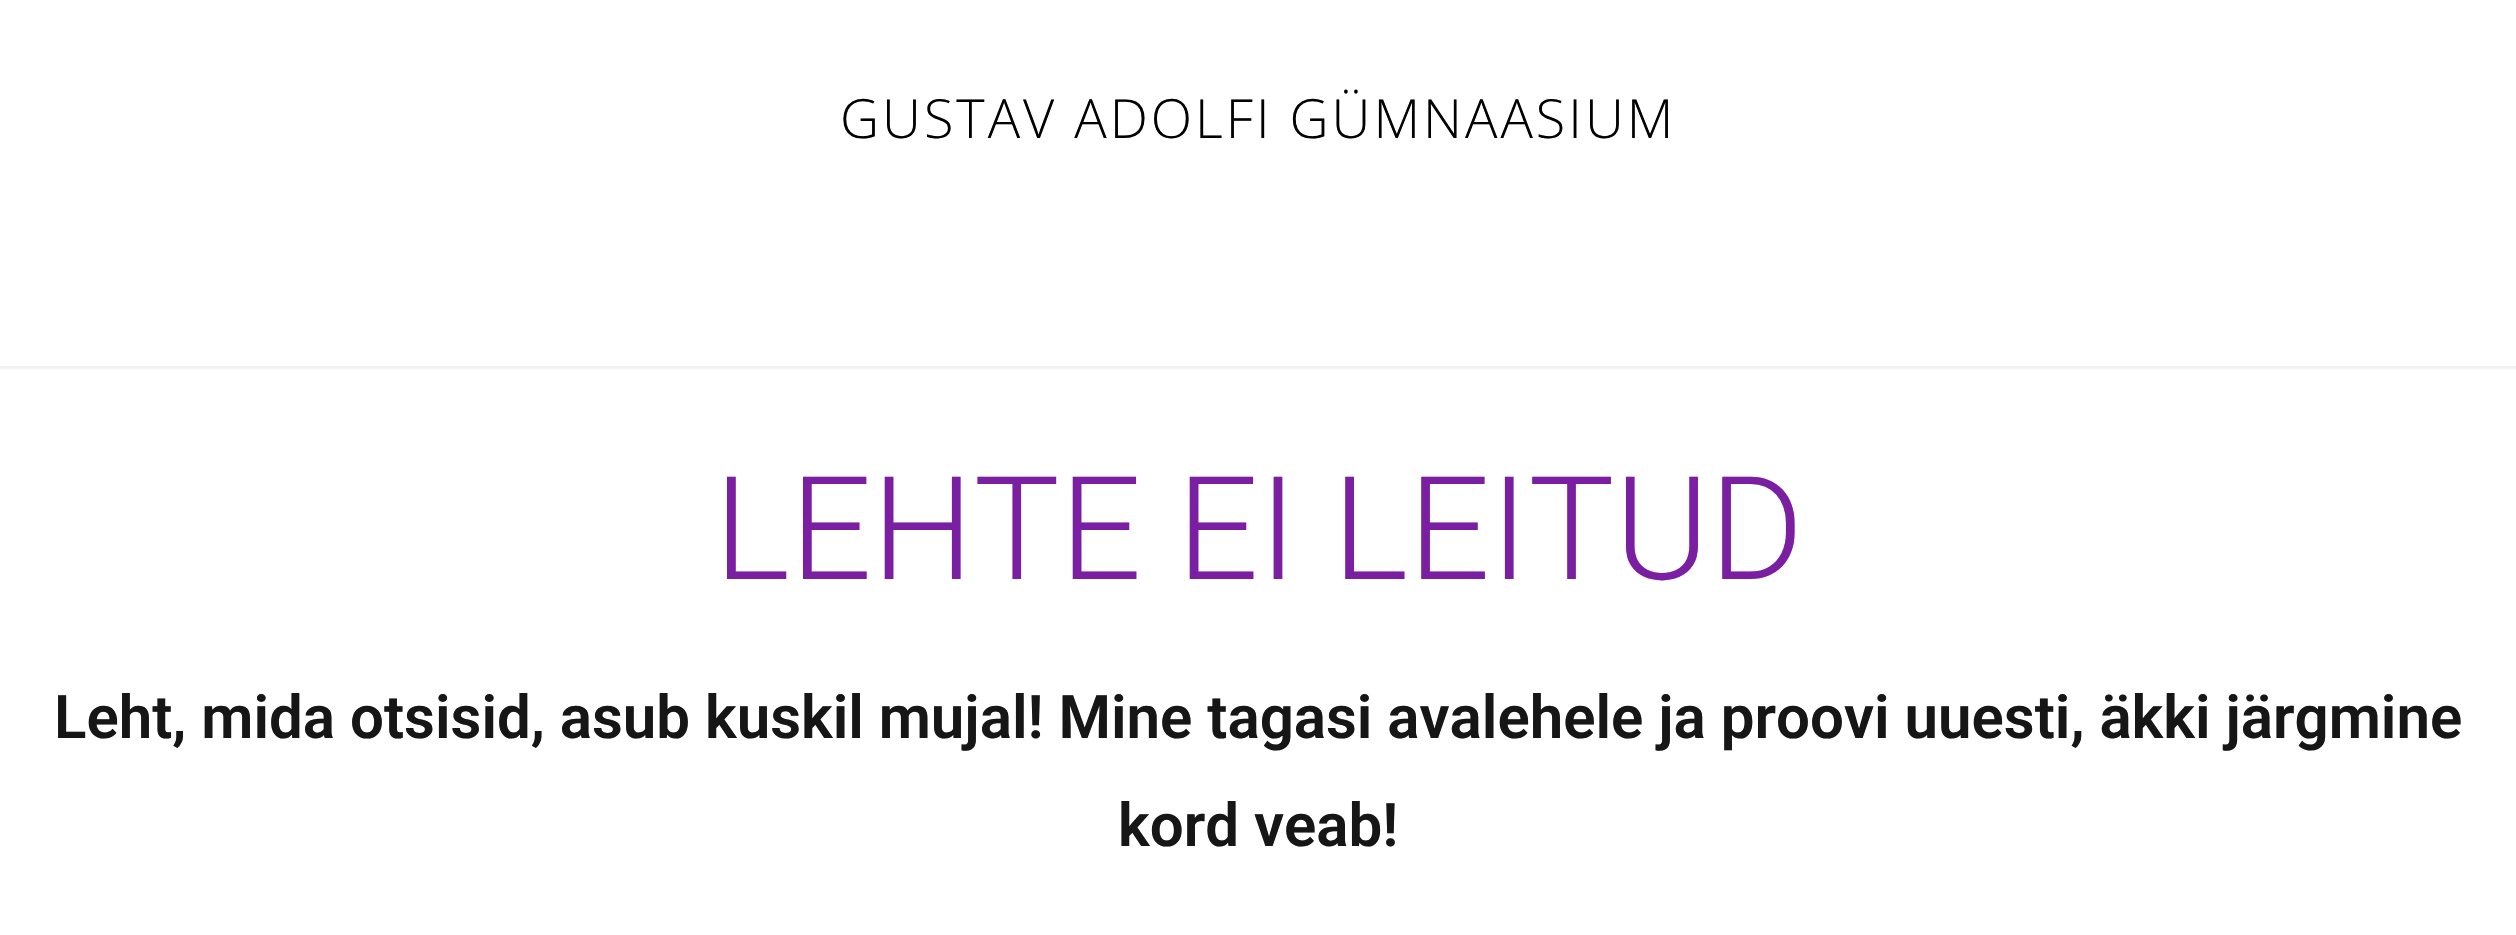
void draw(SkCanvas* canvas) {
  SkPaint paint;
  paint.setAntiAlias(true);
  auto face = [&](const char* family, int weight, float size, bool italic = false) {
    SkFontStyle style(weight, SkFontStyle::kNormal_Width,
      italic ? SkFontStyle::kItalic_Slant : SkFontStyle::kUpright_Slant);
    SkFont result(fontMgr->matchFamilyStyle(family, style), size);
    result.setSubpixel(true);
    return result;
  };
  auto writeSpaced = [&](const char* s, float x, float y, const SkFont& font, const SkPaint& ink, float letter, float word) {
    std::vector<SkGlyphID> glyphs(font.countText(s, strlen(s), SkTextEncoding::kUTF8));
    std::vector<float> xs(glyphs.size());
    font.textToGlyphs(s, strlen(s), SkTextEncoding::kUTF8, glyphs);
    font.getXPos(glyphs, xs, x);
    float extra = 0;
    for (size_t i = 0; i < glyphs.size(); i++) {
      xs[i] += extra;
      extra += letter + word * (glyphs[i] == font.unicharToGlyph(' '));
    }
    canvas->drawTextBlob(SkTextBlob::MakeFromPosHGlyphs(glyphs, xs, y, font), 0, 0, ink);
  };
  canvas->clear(0xffffffff);
  paint.setColor(0xfff1f1f1);
  canvas->drawRect(SkRect::MakeXYWH(0, 366, 2516, 3), paint);
  auto f0 = face("Open Sans", 300, 54);
  paint.setColor(0xff000000);
  writeSpaced("GUSTAV ADOLFI GÜMNAASIUM", 840, 138, f0, paint, 3, 0);
  auto f1 = face("Roboto", 300, 144);
  paint.setColor(0xff7b1fa2);
  canvas->drawString("LEHTE EI LEITUD", 714, 579, f1, paint);
  auto f2 = face("Roboto", 600, 60);
  paint.setColor(0xff161616);
  canvas->drawString("Leht, mida otsisid, asub kuskil mujal! Mine tagasi avalehele ja proovi uuesti, äkki järgmine", 54, 738, f2, paint);
  canvas->drawString("kord veab!", 1118, 846, f2, paint);
}
